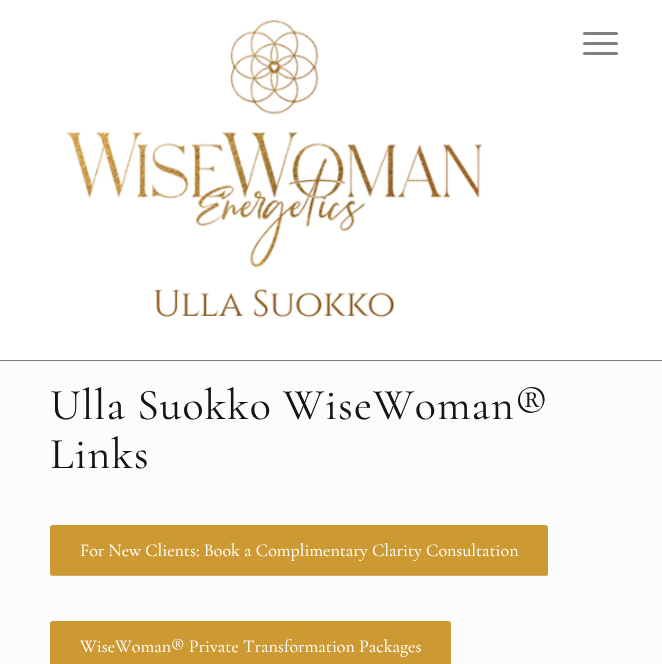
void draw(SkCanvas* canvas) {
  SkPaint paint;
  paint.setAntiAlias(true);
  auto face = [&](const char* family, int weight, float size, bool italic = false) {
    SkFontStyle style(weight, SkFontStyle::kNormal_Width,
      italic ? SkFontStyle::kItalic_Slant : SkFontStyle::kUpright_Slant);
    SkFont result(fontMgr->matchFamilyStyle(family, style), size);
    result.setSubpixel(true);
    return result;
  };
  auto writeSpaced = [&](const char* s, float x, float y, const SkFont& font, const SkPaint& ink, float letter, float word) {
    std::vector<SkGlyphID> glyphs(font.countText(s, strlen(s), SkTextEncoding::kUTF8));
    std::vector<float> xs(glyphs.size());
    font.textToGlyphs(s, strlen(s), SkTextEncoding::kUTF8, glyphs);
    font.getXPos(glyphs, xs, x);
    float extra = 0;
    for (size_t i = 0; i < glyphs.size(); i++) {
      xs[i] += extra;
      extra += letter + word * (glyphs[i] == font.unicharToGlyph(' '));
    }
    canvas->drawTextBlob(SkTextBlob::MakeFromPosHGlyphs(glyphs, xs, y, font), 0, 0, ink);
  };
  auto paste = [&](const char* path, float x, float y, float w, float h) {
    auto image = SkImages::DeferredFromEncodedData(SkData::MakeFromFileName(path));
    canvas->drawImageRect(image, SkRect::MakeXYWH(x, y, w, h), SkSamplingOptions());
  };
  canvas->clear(0xffffffff);
  paint.setColor(0xff7d7d7d);
  canvas->drawRect(SkRect::MakeXYWH(0, 360, 662, 1), paint);
  paste("img/1.png", 66, 19, 416, 299);
  paint.setColor(0xff808080);
  canvas->drawRoundRect(SkRect::MakeXYWH(583, 42, 35, 3), 1.5f, 1.5f, paint);
  canvas->drawRoundRect(SkRect::MakeXYWH(583, 32, 35, 3), 1.5f, 1.5f, paint);
  canvas->drawRoundRect(SkRect::MakeXYWH(583, 52, 35, 3), 1.5f, 1.5f, paint);
  paint.setColor(0xfffcfcfc);
  canvas->drawRect(SkRect::MakeXYWH(0, 361, 662, 303), paint);
  paint.setColor(0xffcc9933);
  canvas->drawRoundRect(SkRect::MakeXYWH(50, 525, 498, 51), 3, 3, paint);
  paint.setColor(0xffd6ad5c);
  canvas->drawRect(SkRect::MakeXYWH(52, 575, 495, 1), paint);
  paint.setColor(0xffcc9933);
  canvas->drawRoundRect(SkRect::MakeXYWH(50, 621, 401, 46), 3, 3, paint);
  auto f0 = face("Cormorant Garamond", 400, 44);
  paint.setColor(0xff141515);
  writeSpaced("Ulla Suokko WiseWoman®", 50, 419, f0, paint, 1, 0);
  writeSpaced("Links", 50, 468, f0, paint, 1, 0);
  auto f1 = face("Cormorant Garamond", 400, 18);
  paint.setColor(0xffffffff);
  canvas->drawString("For New Clients: Book a Complimentary Clarity Consultation", 80, 556, f1, paint);
  canvas->drawString("WiseWoman® Private Transformation Packages", 80, 652, f1, paint);
}
